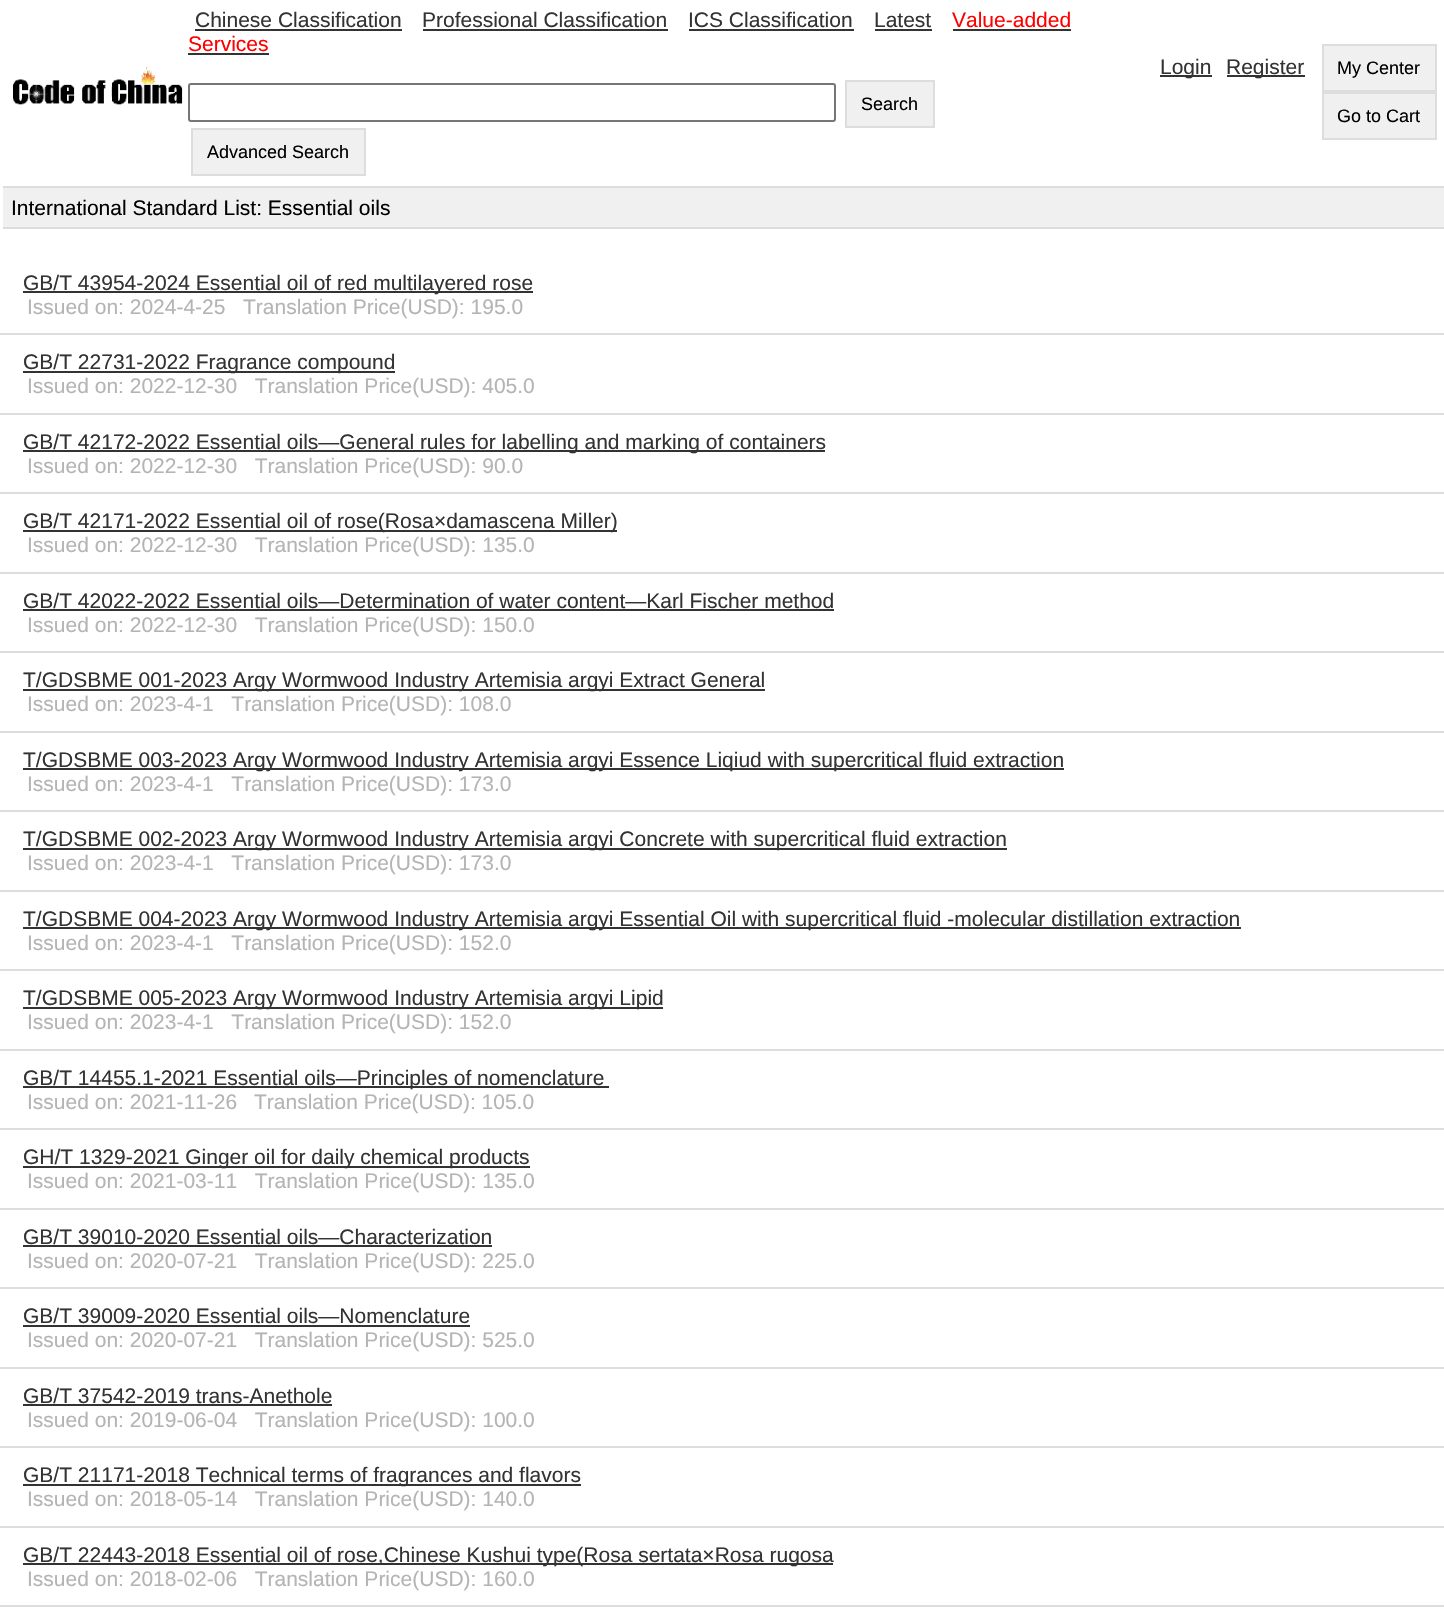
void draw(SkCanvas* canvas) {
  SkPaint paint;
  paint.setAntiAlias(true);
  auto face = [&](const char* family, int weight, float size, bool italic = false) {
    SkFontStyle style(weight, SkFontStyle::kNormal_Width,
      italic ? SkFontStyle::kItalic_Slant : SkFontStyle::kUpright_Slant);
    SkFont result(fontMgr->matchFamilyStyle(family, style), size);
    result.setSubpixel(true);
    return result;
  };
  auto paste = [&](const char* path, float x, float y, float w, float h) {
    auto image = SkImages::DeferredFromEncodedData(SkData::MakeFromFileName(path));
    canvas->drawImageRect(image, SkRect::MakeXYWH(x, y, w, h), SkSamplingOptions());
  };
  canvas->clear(0xffffffff);
  paste("img/1.png", 13, 65, 170, 40);
  {
    const struct { float x, y, w, h; SkColor color; } items[] = {
      {195, 29, 207, 2, 0xff333333},
      {423, 29, 245, 2, 0xff333333},
      {689, 29, 165, 2, 0xff333333},
      {875, 29, 57, 2, 0xff333333},
      {953, 29, 118, 2, 0xff333333},
      {188, 53, 81, 2, 0xff333333},
    };
    for (auto [x, y, w, h, color] : items) {
      paint.setColor(color);
      canvas->drawRect(SkRect::MakeXYWH(x, y, w, h), paint);
    }
  }
  paint.setStroke(true);
  paint.setStrokeWidth(2);
  paint.setColor(0xff767676);
  canvas->drawRoundRect(SkRect::MakeXYWH(189, 84, 646, 37), 2, 2, paint);
  paint.setStroke(false);
  paint.setColor(0xfff0f0f0);
  canvas->drawRect(SkRect::MakeXYWH(846, 81, 88, 46), paint);
  paint.setStroke(true);
  paint.setColor(0xffdddddd);
  canvas->drawRect(SkRect::MakeXYWH(846, 81, 88, 46), paint);
  paint.setStroke(false);
  paint.setColor(0xfff0f0f0);
  canvas->drawRect(SkRect::MakeXYWH(192, 129, 173, 46), paint);
  paint.setStroke(true);
  paint.setColor(0xffdddddd);
  canvas->drawRect(SkRect::MakeXYWH(192, 129, 173, 46), paint);
  paint.setStroke(false);
  paint.setColor(0xff333333);
  canvas->drawRect(SkRect::MakeXYWH(1160, 75, 52, 2), paint);
  canvas->drawRect(SkRect::MakeXYWH(1227, 75, 78, 2), paint);
  paint.setColor(0xfff0f0f0);
  canvas->drawRect(SkRect::MakeXYWH(1323, 45, 113, 46), paint);
  paint.setStroke(true);
  paint.setColor(0xffdddddd);
  canvas->drawRect(SkRect::MakeXYWH(1323, 45, 113, 46), paint);
  paint.setStroke(false);
  paint.setColor(0xfff0f0f0);
  canvas->drawRect(SkRect::MakeXYWH(1323, 93, 113, 46), paint);
  paint.setStroke(true);
  paint.setColor(0xffdddddd);
  canvas->drawRect(SkRect::MakeXYWH(1323, 93, 113, 46), paint);
  paint.setStroke(false);
  {
    const struct { float x, y, w, h; SkColor color; } items[] = {
      {3, 188, 1441, 39, 0xfff0f0f0},
      {3, 186, 1441, 2, 0xffdddddd},
      {3, 227, 1441, 2, 0xffdddddd},
      {0, 333, 1444, 2, 0xffdddddd},
      {23, 291, 510, 2, 0xff333333},
      {0, 413, 1444, 2, 0xffdddddd},
      {23, 371, 372, 2, 0xff333333},
      {0, 492, 1444, 2, 0xffdddddd},
      {23, 450, 802, 2, 0xff333333},
      {0, 572, 1444, 2, 0xffdddddd},
      {23, 530, 594, 2, 0xff333333},
      {0, 651, 1444, 2, 0xffdddddd},
      {23, 609, 811, 2, 0xff333333},
      {0, 731, 1444, 2, 0xffdddddd},
      {23, 689, 742, 2, 0xff333333},
      {0, 810, 1444, 2, 0xffdddddd},
      {23, 768, 1041, 2, 0xff333333},
      {0, 890, 1444, 2, 0xffdddddd},
      {23, 848, 984, 2, 0xff333333},
      {0, 969, 1444, 2, 0xffdddddd},
      {23, 927, 1218, 2, 0xff333333},
      {0, 1049, 1444, 2, 0xffdddddd},
      {23, 1007, 640, 2, 0xff333333},
      {0, 1128, 1444, 2, 0xffdddddd},
      {23, 1086, 586, 2, 0xff333333},
      {0, 1208, 1444, 2, 0xffdddddd},
      {23, 1166, 507, 2, 0xff333333},
      {0, 1287, 1444, 2, 0xffdddddd},
      {23, 1245, 469, 2, 0xff333333},
      {0, 1367, 1444, 2, 0xffdddddd},
      {23, 1325, 447, 2, 0xff333333},
      {0, 1446, 1444, 2, 0xffdddddd},
      {23, 1404, 309, 2, 0xff333333},
      {0, 1526, 1444, 2, 0xffdddddd},
      {23, 1484, 558, 2, 0xff333333},
      {0, 1605, 1444, 2, 0xffdddddd},
      {23, 1563, 810, 2, 0xff333333},
    };
    for (auto [x, y, w, h, color] : items) {
      paint.setColor(color);
      canvas->drawRect(SkRect::MakeXYWH(x, y, w, h), paint);
    }
  }
  auto f0 = face("Liberation Sans", 400, 21);
  {
    const struct { const char* s; float x, y; } items[] = {
      {"Chinese Classification", 195, 27},
      {"Professional Classification", 422, 27},
      {"ICS Classification", 688, 27},
      {"Latest", 874, 27},
    };
    for (auto [s, x, y] : items) {
      canvas->drawString(s, x, y, f0, paint);
    }
  }
  paint.setColor(0xffff0000);
  canvas->drawString("Value-added", 952, 27, f0, paint);
  canvas->drawString("Services", 188, 51, f0, paint);
  auto f1 = face("Liberation Sans", 400, 18);
  paint.setColor(0xff000000);
  canvas->drawString("Search", 861, 110, f1, paint);
  canvas->drawString("Advanced Search", 207, 158, f1, paint);
  paint.setColor(0xff333333);
  canvas->drawString("Login", 1160, 74, f0, paint);
  canvas->drawString("Register", 1226, 74, f0, paint);
  paint.setColor(0xff000000);
  canvas->drawString("My Center", 1337, 74, f1, paint);
  canvas->drawString("Go to Cart", 1337, 122, f1, paint);
  canvas->drawString("International Standard List: Essential oils", 11, 215, f0, paint);
  paint.setColor(0xff333333);
  canvas->drawString("GB/T 43954-2024 Essential oil of red multilayered rose", 23, 290, f0, paint);
  paint.setColor(0xffb4b4b4);
  canvas->drawString("Issued on: 2024-4-25   Translation Price(USD): 195.0", 27, 314, f0, paint);
  paint.setColor(0xff333333);
  canvas->drawString("GB/T 22731-2022 Fragrance compound", 23, 369, f0, paint);
  paint.setColor(0xffb4b4b4);
  canvas->drawString("Issued on: 2022-12-30   Translation Price(USD): 405.0", 27, 393, f0, paint);
  paint.setColor(0xff333333);
  canvas->drawString("GB/T 42172-2022 Essential oils—General rules for labelling and marking of containers", 23, 449, f0, paint);
  paint.setColor(0xffb4b4b4);
  canvas->drawString("Issued on: 2022-12-30   Translation Price(USD): 90.0", 27, 473, f0, paint);
  paint.setColor(0xff333333);
  canvas->drawString("GB/T 42171-2022 Essential oil of rose(Rosa×damascena Miller)", 23, 528, f0, paint);
  paint.setColor(0xffb4b4b4);
  canvas->drawString("Issued on: 2022-12-30   Translation Price(USD): 135.0", 27, 552, f0, paint);
  paint.setColor(0xff333333);
  canvas->drawString("GB/T 42022-2022 Essential oils—Determination of water content—Karl Fischer method", 23, 608, f0, paint);
  paint.setColor(0xffb4b4b4);
  canvas->drawString("Issued on: 2022-12-30   Translation Price(USD): 150.0", 27, 632, f0, paint);
  paint.setColor(0xff333333);
  canvas->drawString("T/GDSBME 001-2023 Argy Wormwood Industry Artemisia argyi Extract General", 23, 687, f0, paint);
  paint.setColor(0xffb4b4b4);
  canvas->drawString("Issued on: 2023-4-1   Translation Price(USD): 108.0", 27, 711, f0, paint);
  paint.setColor(0xff333333);
  canvas->drawString("T/GDSBME 003-2023 Argy Wormwood Industry Artemisia argyi Essence Liqiud with supercritical fluid extraction", 23, 767, f0, paint);
  paint.setColor(0xffb4b4b4);
  canvas->drawString("Issued on: 2023-4-1   Translation Price(USD): 173.0", 27, 791, f0, paint);
  paint.setColor(0xff333333);
  canvas->drawString("T/GDSBME 002-2023 Argy Wormwood Industry Artemisia argyi Concrete with supercritical fluid extraction", 23, 846, f0, paint);
  paint.setColor(0xffb4b4b4);
  canvas->drawString("Issued on: 2023-4-1   Translation Price(USD): 173.0", 27, 870, f0, paint);
  paint.setColor(0xff333333);
  canvas->drawString("T/GDSBME 004-2023 Argy Wormwood Industry Artemisia argyi Essential Oil with supercritical fluid -molecular distillation extraction", 23, 926, f0, paint);
  paint.setColor(0xffb4b4b4);
  canvas->drawString("Issued on: 2023-4-1   Translation Price(USD): 152.0", 27, 950, f0, paint);
  paint.setColor(0xff333333);
  canvas->drawString("T/GDSBME 005-2023 Argy Wormwood Industry Artemisia argyi Lipid", 23, 1005, f0, paint);
  paint.setColor(0xffb4b4b4);
  canvas->drawString("Issued on: 2023-4-1   Translation Price(USD): 152.0", 27, 1029, f0, paint);
  paint.setColor(0xff333333);
  canvas->drawString("GB/T 14455.1-2021 Essential oils—Principles of nomenclature", 23, 1085, f0, paint);
  paint.setColor(0xffb4b4b4);
  canvas->drawString("Issued on: 2021-11-26", 27, 1109, f0, paint);
  canvas->drawString("Translation Price(USD): 105.0", 254, 1109, f0, paint);
  paint.setColor(0xff333333);
  canvas->drawString("GH/T 1329-2021 Ginger oil for daily chemical products", 23, 1164, f0, paint);
  paint.setColor(0xffb4b4b4);
  canvas->drawString("Issued on: 2021-03-11   Translation Price(USD): 135.0", 27, 1188, f0, paint);
  paint.setColor(0xff333333);
  canvas->drawString("GB/T 39010-2020 Essential oils—Characterization", 23, 1244, f0, paint);
  paint.setColor(0xffb4b4b4);
  canvas->drawString("Issued on: 2020-07-21   Translation Price(USD): 225.0", 27, 1268, f0, paint);
  paint.setColor(0xff333333);
  canvas->drawString("GB/T 39009-2020 Essential oils—Nomenclature", 23, 1323, f0, paint);
  paint.setColor(0xffb4b4b4);
  canvas->drawString("Issued on: 2020-07-21   Translation Price(USD): 525.0", 27, 1347, f0, paint);
  paint.setColor(0xff333333);
  canvas->drawString("GB/T 37542-2019 trans-Anethole", 23, 1403, f0, paint);
  paint.setColor(0xffb4b4b4);
  canvas->drawString("Issued on: 2019-06-04   Translation Price(USD): 100.0", 27, 1427, f0, paint);
  paint.setColor(0xff333333);
  canvas->drawString("GB/T 21171-2018 Technical terms of fragrances and flavors", 23, 1482, f0, paint);
  paint.setColor(0xffb4b4b4);
  canvas->drawString("Issued on: 2018-05-14   Translation Price(USD): 140.0", 27, 1506, f0, paint);
  paint.setColor(0xff333333);
  canvas->drawString("GB/T 22443-2018 Essential oil of rose,Chinese Kushui type(Rosa sertata×Rosa rugosa", 23, 1562, f0, paint);
  paint.setColor(0xffb4b4b4);
  canvas->drawString("Issued on: 2018-02-06   Translation Price(USD): 160.0", 27, 1586, f0, paint);
}
